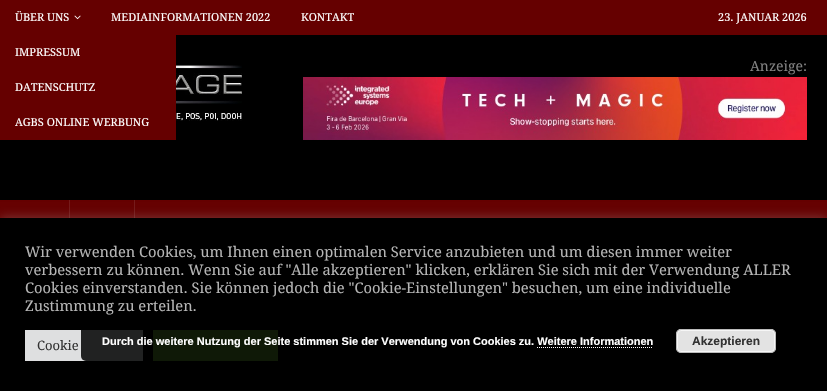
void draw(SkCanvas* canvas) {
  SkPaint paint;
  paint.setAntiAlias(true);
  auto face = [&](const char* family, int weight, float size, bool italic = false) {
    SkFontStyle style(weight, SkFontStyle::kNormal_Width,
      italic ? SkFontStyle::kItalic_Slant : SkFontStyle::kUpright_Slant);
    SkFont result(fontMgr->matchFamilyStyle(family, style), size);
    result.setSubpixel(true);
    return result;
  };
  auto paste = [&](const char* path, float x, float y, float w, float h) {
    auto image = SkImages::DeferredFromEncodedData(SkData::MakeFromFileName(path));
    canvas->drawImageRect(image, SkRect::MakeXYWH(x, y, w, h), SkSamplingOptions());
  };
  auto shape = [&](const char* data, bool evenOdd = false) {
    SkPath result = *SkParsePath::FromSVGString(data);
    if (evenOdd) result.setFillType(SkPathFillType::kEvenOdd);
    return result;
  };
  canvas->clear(0xff000000);
  paint.setColor(0xff650000);
  canvas->drawRect(SkRect::MakeXYWH(0, 0, 827, 35), paint);
  paste("img/1.png", 74, 15, 7, 5);
  canvas->drawRect(SkRect::MakeXYWH(0, 35, 176, 105), paint);
  paste("img/2.png", 176, 65, 66, 56);
  paste("img/3.png", 303, 77, 504, 63);
  {
    const struct { float x, y, w, h; SkColor color; } items[] = {
      {0, 200, 827, 18, 0xff650000},
      {69, 200, 1, 18, 0xff741a1a},
      {134, 200, 1, 18, 0xff741a1a},
    };
    for (auto [x, y, w, h, color] : items) {
      paint.setColor(color);
      canvas->drawRect(SkRect::MakeXYWH(x, y, w, h), paint);
    }
  }
  paint.setColor(0x4dacabab);
  paint.setMaskFilter(SkMaskFilter::MakeBlur(kNormal_SkBlurStyle, 5));
  canvas->drawRect(SkRect::MakeXYWH(0, 217, 827, 173), paint);
  paint.setMaskFilter(nullptr);
  {
    const struct { float x, y, w, h; SkColor color; } items[] = {
      {0, 218, 827, 173, 0xff000000},
      {25, 330, 118, 31, 0xffdedfe0},
      {153, 330, 125, 31, 0xff61a229},
    };
    for (auto [x, y, w, h, color] : items) {
      paint.setColor(color);
      canvas->drawRect(SkRect::MakeXYWH(x, y, w, h), paint);
    }
  }
  paint.setColor(0xd9000000);
  canvas->drawRoundRect(SkRect::MakeXYWH(81, 321, 716, 40), 5, 5, paint);
  paint.setColor(0xffe3e3e3);
  canvas->drawRoundRect(SkRect::MakeXYWH(676, 329, 100, 24), 5, 5, paint);
  paint.setStroke(true);
  paint.setStrokeWidth(1);
  paint.setColor(0xfff6f6f6);
  canvas->drawRoundRect(SkRect::MakeXYWH(677.5f, 330.5f, 97, 21), 3.5f, 3.5f, paint);
  paint.setColor(0xffbbbbbb);
  canvas->drawRoundRect(SkRect::MakeXYWH(676.5f, 329.5f, 99, 23), 4.5f, 4.5f, paint);
  paint.setColor(0xffffffff);
  paint.setPathEffect(SkDashPathEffect::Make({{1, 1}}, 0));
  canvas->drawPath(shape("M537 347.5H653"), paint);
  paint.setPathEffect(nullptr);
  auto f0 = face("Droid Serif", 400, 11);
  paint.setStroke(false);
  {
    const struct { const char* s; float x, y; } items[] = {
      {"ÜBER UNS", 15, 21},
      {"IMPRESSUM", 15, 56},
      {"DATENSCHUTZ", 15, 91},
      {"AGBS ONLINE WERBUNG", 15, 126},
      {"MEDIAINFORMATIONEN 2022", 111, 21},
      {"KONTAKT", 301, 21},
      {"23. JANUAR 2026", 718, 21},
    };
    for (auto [s, x, y] : items) {
      canvas->drawString(s, x, y, f0, paint);
    }
  }
  auto f1 = face("Droid Serif", 400, 14);
  paint.setColor(0xff808080);
  canvas->drawString("Anzeige:", 750, 71, f1, paint);
  auto f2 = face("Droid Serif", 400, 14.67f);
  paint.setColor(0xffb5b5b5);
  {
    const struct { const char* s; float x, y; } items[] = {
      {"Wir verwenden Cookies, um Ihnen einen optimalen Service anzubieten und um diesen immer weiter", 25, 257},
      {"verbessern zu können. Wenn Sie auf \"Alle akzeptieren\" klicken, erklären Sie sich mit der Verwendung ALLER", 25, 275},
      {"Cookies einverstanden. Sie können jedoch die \"Cookie-Einstellungen\" besuchen, um eine individuelle", 25, 293},
      {"Zustimmung zu erteilen.", 25, 311},
    };
    for (auto [s, x, y] : items) {
      canvas->drawString(s, x, y, f2, paint);
    }
  }
  auto f3 = face("Droid Serif", 400, 13);
  paint.setColor(0xff333333);
  canvas->drawString("Cookie", 37, 350, f3, paint);
  auto f4 = face("Liberation Sans", 700, 11);
  paint.setColor(0xffffffff);
  canvas->drawString("Durch die weitere Nutzung der Seite stimmen Sie der Verwendung von Cookies zu. Weitere Informationen", 102, 345, f4, paint);
  auto f5 = face("Liberation Sans", 700, 12);
  paint.setColor(0xff333333);
  canvas->drawString("Akzeptieren", 692, 345, f5, paint);
}
